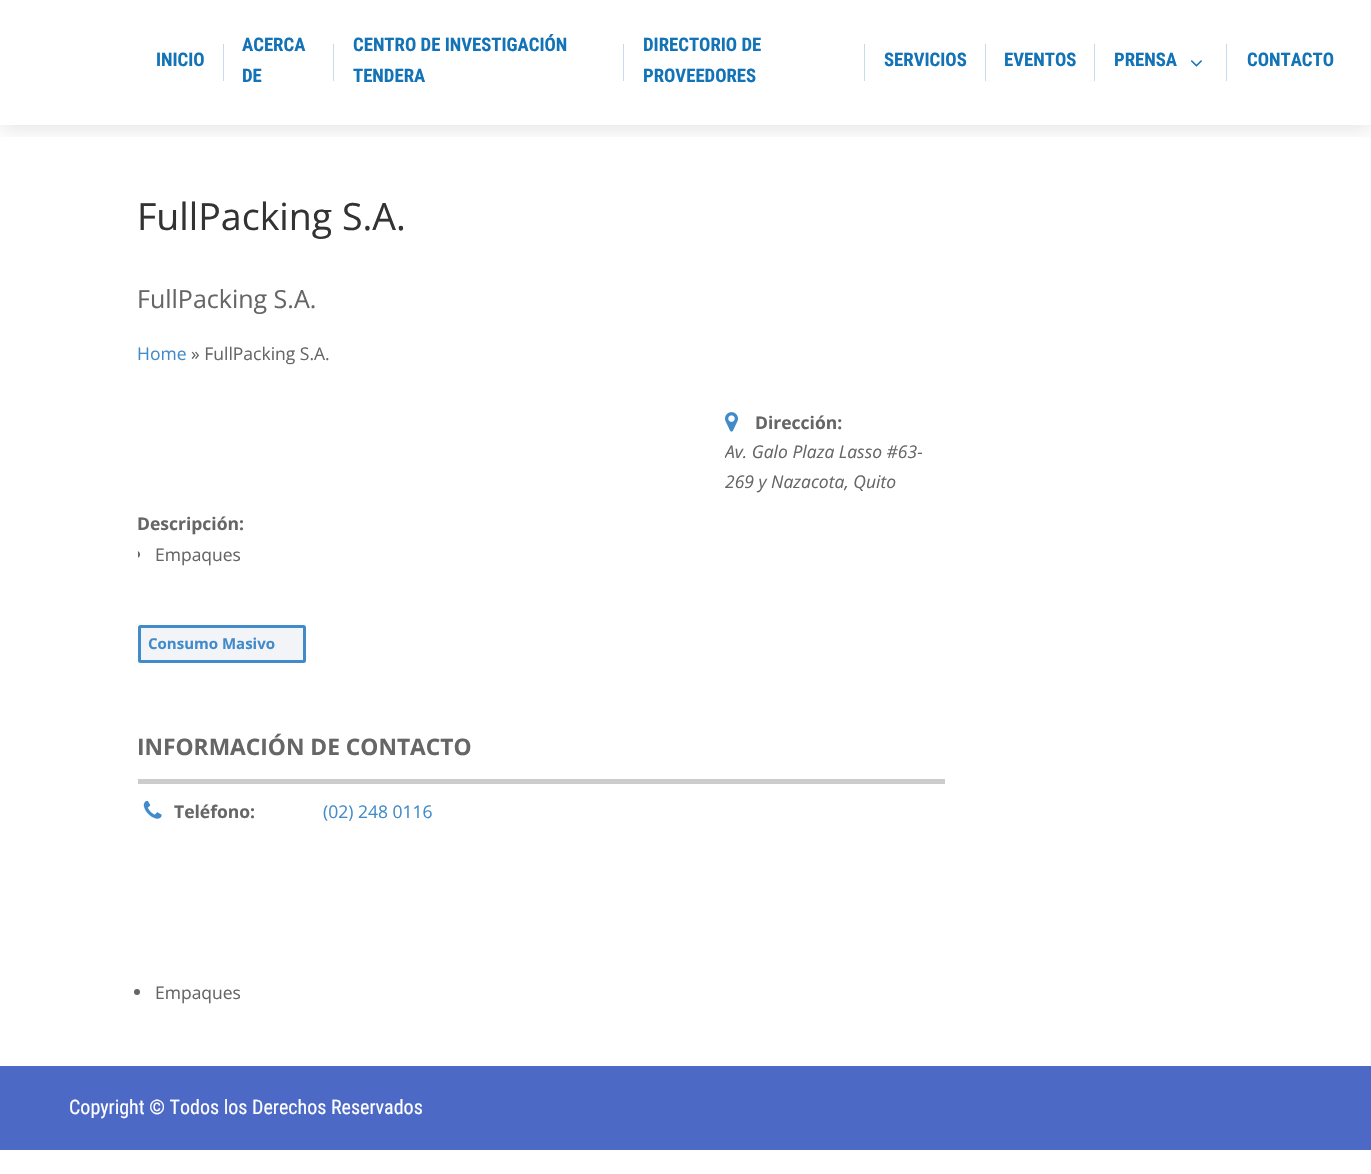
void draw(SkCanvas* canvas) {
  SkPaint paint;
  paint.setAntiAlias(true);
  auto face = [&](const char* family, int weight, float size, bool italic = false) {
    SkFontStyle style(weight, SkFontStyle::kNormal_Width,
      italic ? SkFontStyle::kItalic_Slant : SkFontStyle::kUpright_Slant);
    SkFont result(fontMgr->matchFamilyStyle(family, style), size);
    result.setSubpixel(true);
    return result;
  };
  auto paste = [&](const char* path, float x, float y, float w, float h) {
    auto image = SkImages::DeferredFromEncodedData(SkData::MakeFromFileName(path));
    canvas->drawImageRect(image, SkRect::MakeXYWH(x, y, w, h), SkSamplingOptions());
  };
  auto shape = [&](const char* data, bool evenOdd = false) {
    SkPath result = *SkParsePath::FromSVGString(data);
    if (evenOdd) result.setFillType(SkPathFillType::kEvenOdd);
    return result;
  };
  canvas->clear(0xffffffff);
  canvas->save();
  canvas->clipRect(SkRect::MakeXYWH(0, 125, 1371, 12));
  paint.setColor(0x1a000000);
  paint.setMaskFilter(SkMaskFilter::MakeBlur(kNormal_SkBlurStyle, 9.5f));
  canvas->drawRect(SkRect::MakeXYWH(0, 4, 1371, 125), paint);
  paint.setMaskFilter(nullptr);
  canvas->restore();
  {
    const struct { float x, y, w, h; SkColor color; } items[] = {
      {223, 44, 1, 37, 0xffc4dced},
      {333, 44, 1, 37, 0xffc4dced},
      {623, 44, 1, 37, 0xffc4dced},
      {864, 44, 1, 37, 0xffc4dced},
      {985, 44, 1, 37, 0xffc4dced},
      {1094, 44, 1, 37, 0xffc4dced},
    };
    for (auto [x, y, w, h, color] : items) {
      paint.setColor(color);
      canvas->drawRect(SkRect::MakeXYWH(x, y, w, h), paint);
    }
  }
  paste("img/1.png", 1190, 60, 12, 7);
  canvas->drawRect(SkRect::MakeXYWH(1226, 44, 1, 37), paint);
  paste("img/2.png", 725, 412, 13, 20);
  paint.setColor(0xff666666);
  canvas->drawPath(shape("M138 551H137C138.5 551 140 552.5 140 554V555C140 556.5 138.5 558 137 558H138Z"), paint);
  paint.setColor(0xfff3f4f7);
  canvas->drawRoundRect(SkRect::MakeXYWH(139.5f, 626.5f, 165, 35), 1, 1, paint);
  paint.setStroke(true);
  paint.setStrokeWidth(3);
  paint.setColor(0xff428bca);
  canvas->drawRoundRect(SkRect::MakeXYWH(139.5f, 626.5f, 165, 35), 1, 1, paint);
  paint.setStroke(false);
  paint.setColor(0xffcccccc);
  canvas->drawRect(SkRect::MakeXYWH(138, 779, 807, 5), paint);
  paste("img/3.png", 143, 800, 19, 19);
  paint.setColor(0xff666666);
  canvas->drawCircle(137, 992, 3, paint);
  paint.setColor(0xff4d69c6);
  canvas->drawRect(SkRect::MakeXYWH(0, 1066, 1371, 84), paint);
  auto f0 = face("Roboto Condensed", 700, 18.75f);
  paint.setColor(0xff1373b7);
  {
    const struct { const char* s; float x, y; } items[] = {
      {"INICIO", 156, 66},
      {"ACERCA", 242, 51},
      {"DE", 242, 82},
      {"CENTRO DE INVESTIGACIÓN", 353, 51},
      {"TENDERA", 353, 82},
      {"DIRECTORIO DE", 643, 51},
      {"PROVEEDORES", 643, 82},
      {"SERVICIOS", 884, 66},
      {"EVENTOS", 1004, 66},
      {"PRENSA", 1114, 66},
      {"CONTACTO", 1247, 66},
    };
    for (auto [s, x, y] : items) {
      canvas->drawString(s, x, y, f0, paint);
    }
  }
  auto f1 = face("Open Sans", 400, 37.5f);
  paint.setColor(0xff333333);
  canvas->drawString("FullPacking S.A.", 137, 230, f1, paint);
  auto f2 = face("Open Sans", 400, 25);
  paint.setColor(0xff666666);
  canvas->drawString("FullPacking S.A.", 137, 308, f2, paint);
  auto f3 = face("Open Sans", 400, 17.5f);
  paint.setColor(0xff428bca);
  canvas->drawString("Home", 137, 360, f3, paint);
  paint.setColor(0xff666666);
  canvas->drawString("» FullPacking S.A.", 191, 360, f3, paint);
  auto f4 = face("Open Sans", 700, 17.5f);
  canvas->drawString("Dirección:", 755, 429, f4, paint);
  canvas->save();
  canvas->clipRect(SkRect::MakeXYWH(725, 408, 220, 88));
  auto f5 = face("Open Sans", 400, 17.5f, true);
  canvas->drawString("Av. Galo Plaza Lasso #63-", 725, 458, f5, paint);
  canvas->restore();
  canvas->drawString("269 y Nazacota, Quito", 725, 488, f5, paint);
  canvas->drawString("Descripción:", 137, 530, f4, paint);
  canvas->drawString("Empaques", 155, 561, f3, paint);
  auto f6 = face("Open Sans", 700, 15);
  paint.setColor(0xff428bca);
  canvas->drawString("Consumo Masivo", 148, 649, f6, paint);
  auto f7 = face("Open Sans", 700, 22.75f);
  paint.setColor(0xff666666);
  canvas->drawString("INFORMACIÓN DE CONTACTO", 137, 755, f7, paint);
  canvas->drawString("Teléfono:", 174, 818, f4, paint);
  paint.setColor(0xff428bca);
  canvas->drawString("(02) 248 0116", 323, 818, f3, paint);
  paint.setColor(0xff666666);
  canvas->drawString("Empaques", 155, 999, f3, paint);
  auto f8 = face("Roboto Condensed", 400, 20);
  paint.setColor(0xffffffff);
  canvas->drawString("Copyright © Todos los Derechos Reservados", 69, 1114, f8, paint);
}
